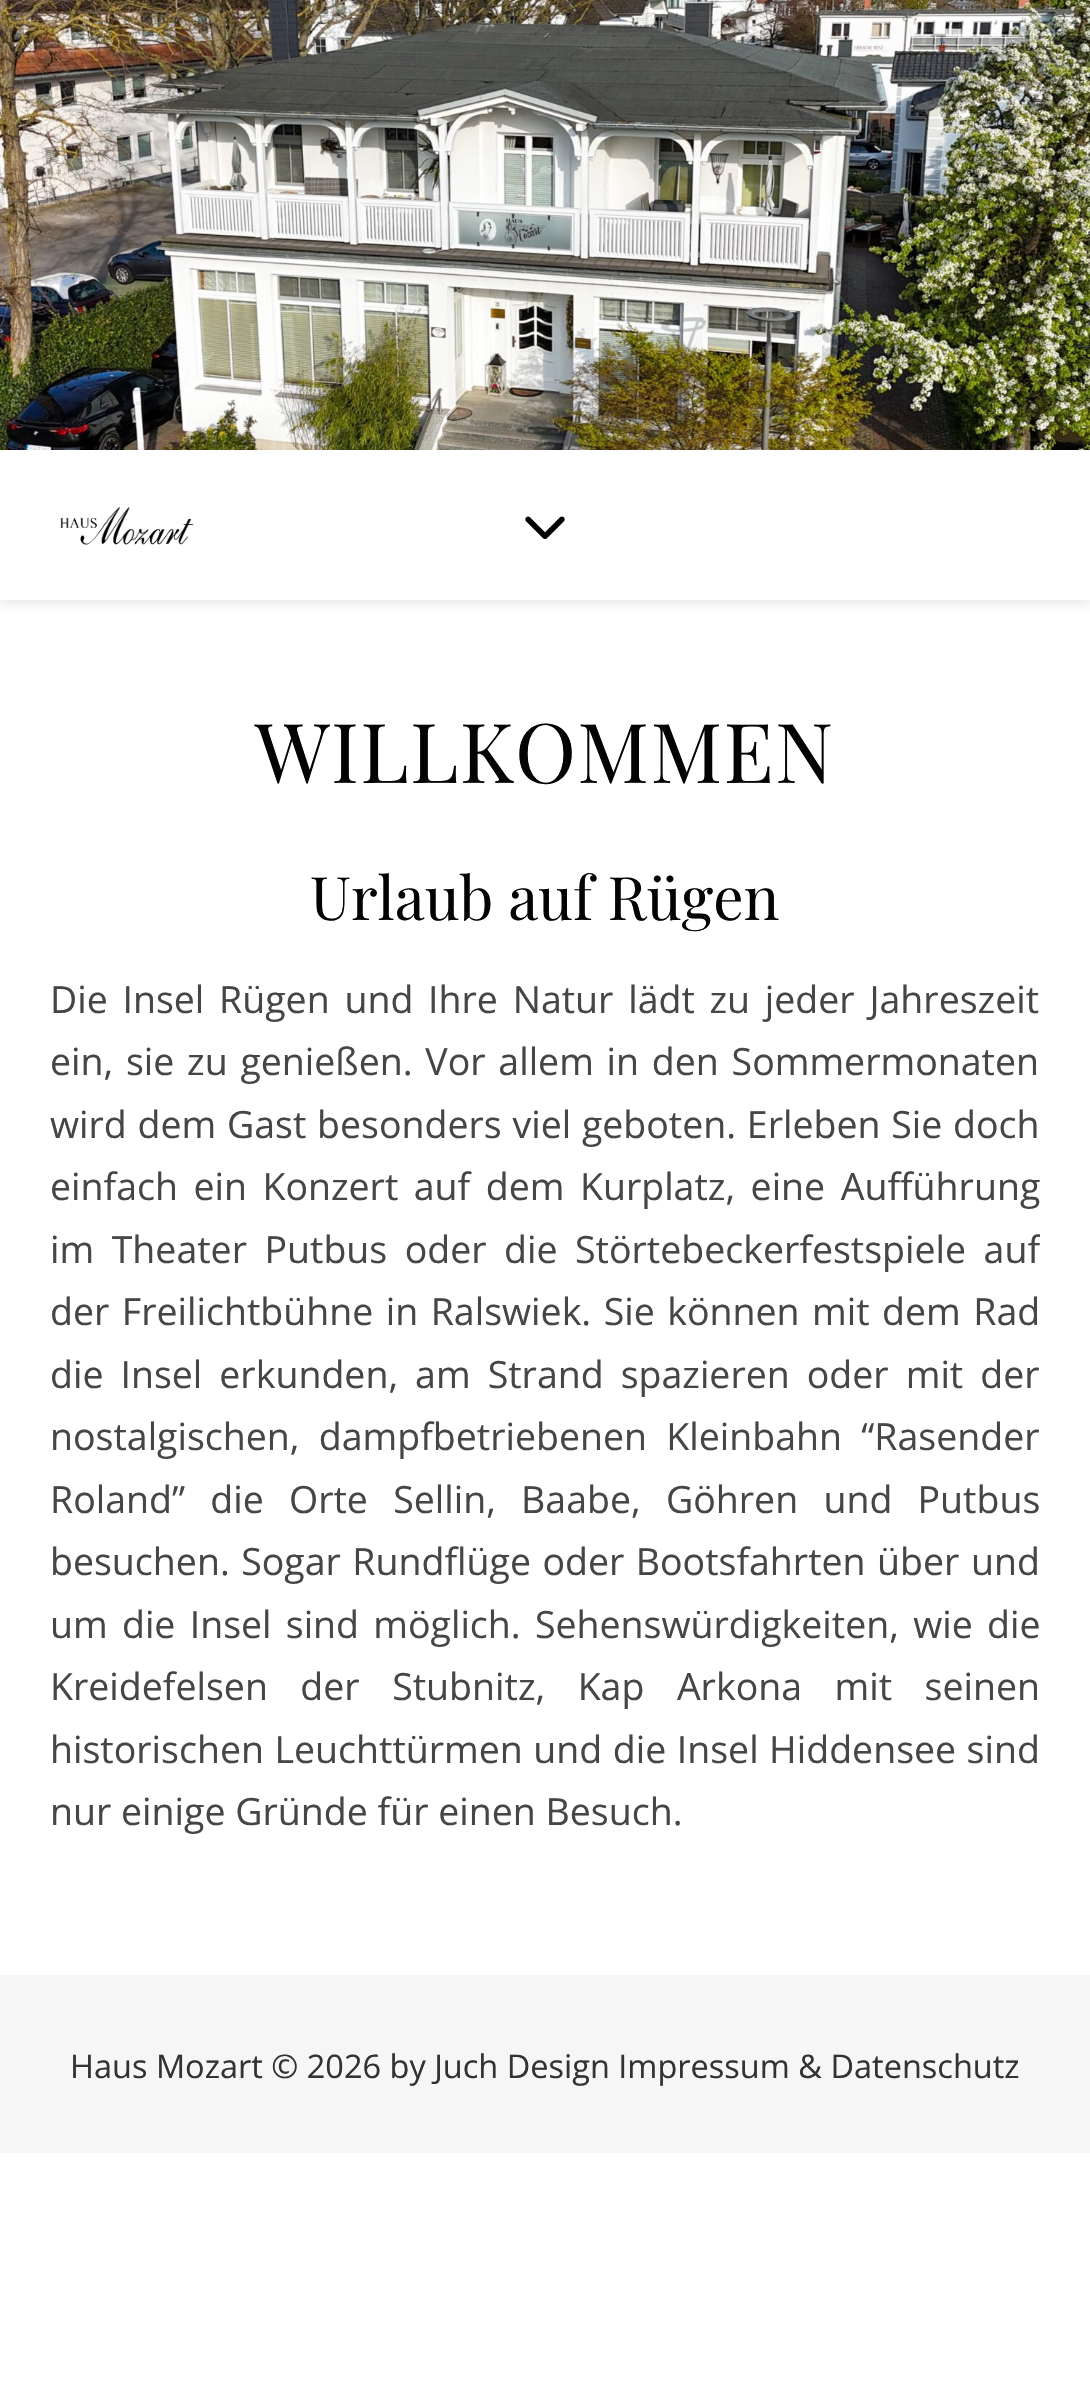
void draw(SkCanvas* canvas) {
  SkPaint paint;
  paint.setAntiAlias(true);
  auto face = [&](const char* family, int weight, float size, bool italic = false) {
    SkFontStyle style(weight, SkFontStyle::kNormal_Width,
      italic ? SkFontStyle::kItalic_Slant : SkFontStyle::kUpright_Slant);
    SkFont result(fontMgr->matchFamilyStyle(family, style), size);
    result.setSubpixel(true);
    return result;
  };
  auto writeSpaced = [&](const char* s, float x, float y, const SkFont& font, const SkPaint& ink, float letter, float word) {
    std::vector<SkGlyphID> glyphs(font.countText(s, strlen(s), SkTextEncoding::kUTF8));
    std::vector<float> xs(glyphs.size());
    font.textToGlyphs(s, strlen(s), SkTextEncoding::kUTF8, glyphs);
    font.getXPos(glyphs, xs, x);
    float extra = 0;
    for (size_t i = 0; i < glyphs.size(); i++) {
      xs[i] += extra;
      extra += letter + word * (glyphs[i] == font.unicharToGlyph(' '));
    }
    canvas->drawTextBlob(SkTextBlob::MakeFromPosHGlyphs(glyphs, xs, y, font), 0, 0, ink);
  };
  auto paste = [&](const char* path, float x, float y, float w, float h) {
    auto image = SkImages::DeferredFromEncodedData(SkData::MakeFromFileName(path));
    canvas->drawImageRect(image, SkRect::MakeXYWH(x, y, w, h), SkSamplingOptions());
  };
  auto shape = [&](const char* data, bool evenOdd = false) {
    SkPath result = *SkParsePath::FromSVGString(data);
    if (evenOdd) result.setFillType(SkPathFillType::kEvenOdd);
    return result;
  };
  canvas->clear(0xffffffff);
  paste("img/1.png", 0, 0, 1090, 450);
  canvas->save();
  canvas->clipPath(shape("M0 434H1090V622H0ZM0 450H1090V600H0Z", true), true);
  paint.setColor(0x1a000000);
  paint.setMaskFilter(SkMaskFilter::MakeBlur(kNormal_SkBlurStyle, 6));
  canvas->drawRect(SkRect::MakeXYWH(0, 453, 1090, 150), paint);
  paint.setMaskFilter(nullptr);
  canvas->restore();
  paste("img/2.png", 60, 507, 134, 38);
  paste("img/3.png", 525, 516, 40, 23);
  paint.setColor(0xfff6f6f6);
  canvas->drawRect(SkRect::MakeXYWH(0, 1975, 1090, 178), paint);
  auto f0 = face("Playfair Display", 400, 82.5f);
  paint.setColor(0xff030303);
  writeSpaced("WILLKOMMEN", 255, 783, f0, paint, 1.25f, 0);
  auto f1 = face("Playfair Display", 400, 60);
  canvas->drawString("Urlaub auf Rügen", 310, 920, f1, paint);
  auto f2 = face("Open Sans", 400, 37.5f);
  paint.setColor(0xff464646);
  writeSpaced("Die Insel Rügen und Ihre Natur lädt zu jeder Jahreszeit", 50, 1013, f2, paint, 0, 5);
  writeSpaced("ein, sie zu genießen. Vor allem in den Sommermonaten", 50, 1075, f2, paint, 0, 3);
  writeSpaced("wird dem Gast besonders viel geboten. Erleben Sie doch", 50, 1138, f2, paint, 0, 1);
  writeSpaced("einfach ein Konzert auf dem Kurplatz, eine Aufführung", 50, 1200, f2, paint, 0, 5.75f);
  canvas->save();
  canvas->clipRect(SkRect::MakeXYWH(50, 855, 990, 1020));
  writeSpaced("im Theater Putbus oder die Störtebeckerfestspiele auf", 50, 1263, f2, paint, 0, 7.75f);
  canvas->restore();
  writeSpaced("der Freilichtbühne in Ralswiek. Sie können mit dem Rad", 50, 1325, f2, paint, 0, 2.75f);
  writeSpaced("die Insel erkunden, am Strand spazieren oder mit der", 50, 1388, f2, paint, 0, 7.25f);
  writeSpaced("nostalgischen, dampfbetriebenen Kleinbahn “Rasender", 50, 1450, f2, paint, 0, 9.5f);
  writeSpaced("Roland” die Orte Sellin, Baabe, Göhren und Putbus", 50, 1513, f2, paint, 0, 15.5f);
  writeSpaced("besuchen. Sogar Rundflüge oder Bootsfahrten über und", 50, 1575, f2, paint, 0, 1.75f);
  writeSpaced("um die Insel sind möglich. Sehenswürdigkeiten, wie die", 50, 1638, f2, paint, 0, 4.5f);
  writeSpaced("Kreidefelsen der Stubnitz, Kap Arkona mit seinen", 50, 1700, f2, paint, 0, 22.75f);
  writeSpaced("historischen Leuchttürmen und die Insel Hiddensee sind", 50, 1763, f2, paint, 0, 0.75f);
  canvas->drawString("nur einige Gründe für einen Besuch.", 50, 1825, f2, paint);
  auto f3 = face("Open Sans", 400, 32.5f);
  paint.setColor(0xff333333);
  canvas->drawString("Haus Mozart © 2026 by Juch Design Impressum & Datenschutz", 70, 2078, f3, paint);
}
